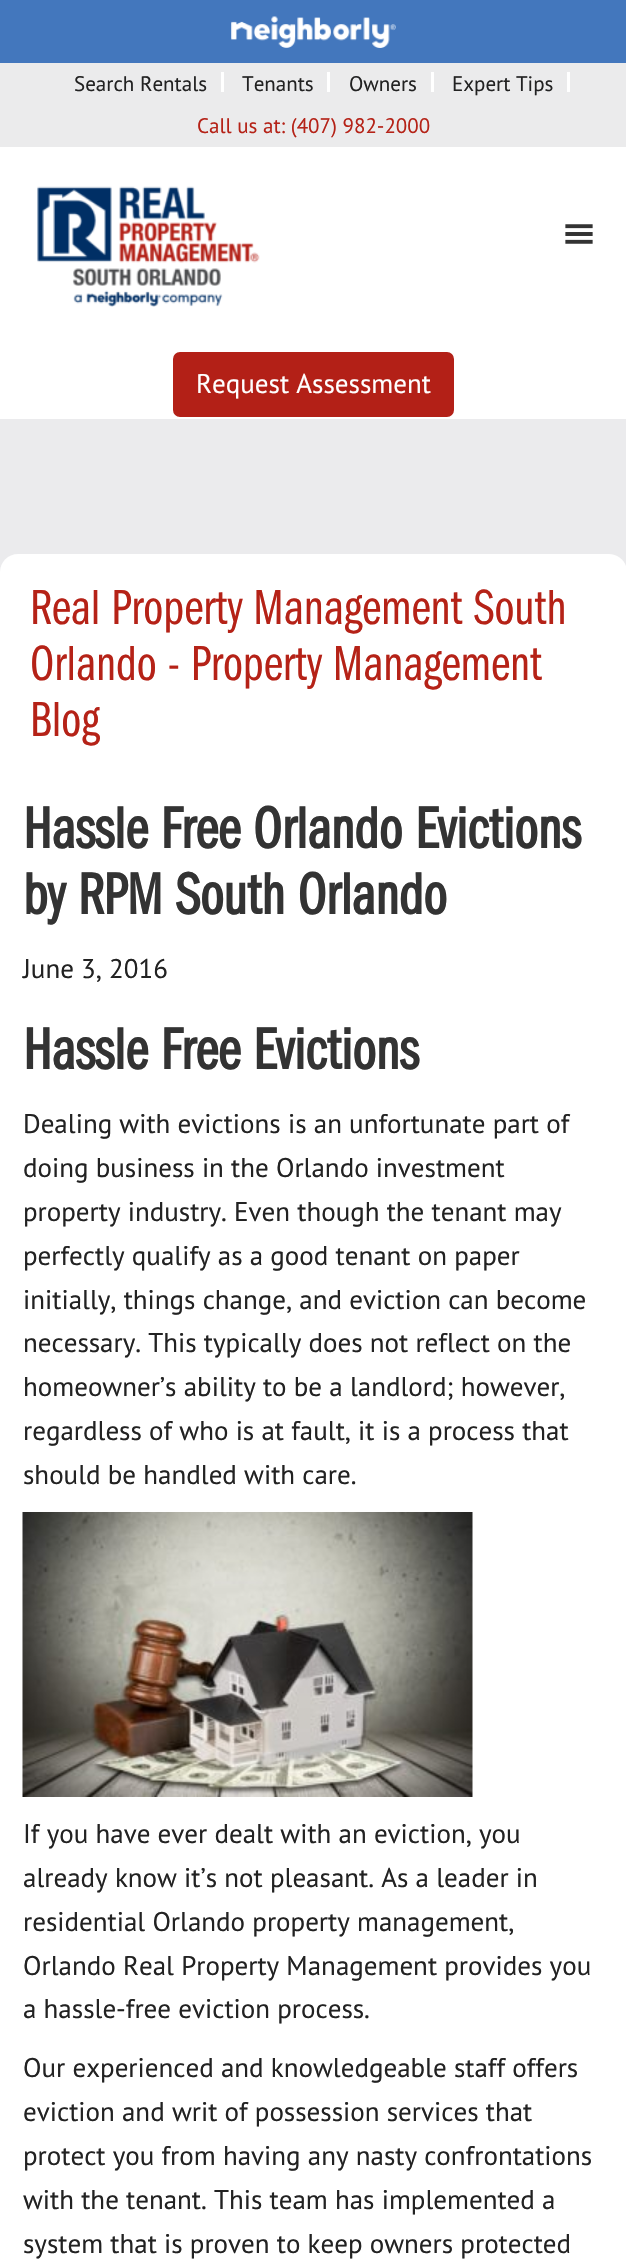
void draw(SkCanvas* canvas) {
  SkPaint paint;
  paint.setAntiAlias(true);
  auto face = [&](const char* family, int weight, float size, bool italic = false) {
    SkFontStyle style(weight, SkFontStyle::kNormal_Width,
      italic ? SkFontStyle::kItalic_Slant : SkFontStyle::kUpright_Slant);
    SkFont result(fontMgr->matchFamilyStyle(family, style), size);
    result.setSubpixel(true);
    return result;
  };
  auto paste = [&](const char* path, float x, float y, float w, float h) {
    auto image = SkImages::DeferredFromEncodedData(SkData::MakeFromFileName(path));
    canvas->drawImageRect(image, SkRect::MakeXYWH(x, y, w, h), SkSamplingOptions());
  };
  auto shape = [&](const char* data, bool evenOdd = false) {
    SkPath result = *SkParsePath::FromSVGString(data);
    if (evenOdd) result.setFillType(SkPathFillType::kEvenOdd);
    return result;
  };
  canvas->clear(0xff4377bd);
  paste("img/1.png", 231, 16, 165, 32);
  {
    const struct { float x, y, w, h; SkColor color; } items[] = {
      {0, 147, 626, 272, 0xffffffff},
      {0, 63, 626, 84, 0xffebebec},
      {221, 72, 3, 20, 0xffffffff},
      {327, 72, 3, 20, 0xffffffff},
      {431, 72, 3, 20, 0xffffffff},
      {567, 72, 3, 20, 0xffffffff},
    };
    for (auto [x, y, w, h, color] : items) {
      paint.setColor(color);
      canvas->drawRect(SkRect::MakeXYWH(x, y, w, h), paint);
    }
  }
  paste("img/2.png", 37, 186, 223, 121);
  paste("img/3.png", 565, 224, 28, 20);
  paint.setColor(0xffb32017);
  canvas->drawRoundRect(SkRect::MakeXYWH(172, 351, 283, 67), 8, 8, paint);
  paint.setStroke(true);
  paint.setStrokeWidth(2);
  paint.setColor(0xffffffff);
  canvas->drawRoundRect(SkRect::MakeXYWH(172, 351, 283, 67), 8, 8, paint);
  paint.setStroke(false);
  paint.setColor(0xffebebed);
  canvas->drawRect(SkRect::MakeXYWH(0, 419, 626, 153), paint);
  paint.setColor(0xffffffff);
  canvas->drawPath(shape("M18 554H609C619 554 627 562 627 572V770H0V572C0 562 8 554 18 554Z"), paint);
  canvas->drawRect(SkRect::MakeXYWH(0, 770, 626, 1490), paint);
  paste("img/4.png", 22, 1512, 451, 285);
  auto f0 = face("PT Sans", 400, 21);
  paint.setColor(0xff222222);
  {
    const struct { const char* s; float x, y; } items[] = {
      {"Search Rentals", 74, 91},
      {"Tenants", 242, 91},
      {"Owners", 349, 91},
      {"Expert Tips", 452, 91},
    };
    for (auto [s, x, y] : items) {
      canvas->drawString(s, x, y, f0, paint);
    }
  }
  paint.setColor(0xffb52217);
  canvas->drawString("Call us at: (407) 982-2000", 197, 133, f0, paint);
  auto f1 = face("PT Sans", 400, 27);
  paint.setColor(0xffffffff);
  canvas->drawString("Request Assessment", 196, 393, f1, paint);
  auto f2 = face("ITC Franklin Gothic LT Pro", 400, 51);
  paint.setColor(0xffb52217);
  {
    const struct { const char* s; float x, y; } items[] = {
      {"Real Property Management South", 30, 624},
      {"Orlando - Property Management", 30, 680},
      {"Blog", 30, 736},
    };
    for (auto [s, x, y] : items) {
      canvas->drawString(s, x, y, f2, paint);
    }
  }
  auto f3 = face("ITC Franklin Gothic LT Pro", 700, 60);
  paint.setColor(0xff333333);
  canvas->drawString("Hassle Free Orlando Evictions", 23, 848, f3, paint);
  canvas->drawString("by RPM South Orlando", 23, 914, f3, paint);
  paint.setColor(0xff222222);
  canvas->drawString("June 3, 2016", 23, 978, f1, paint);
  paint.setColor(0xff333333);
  canvas->drawString("Hassle Free Evictions", 23, 1069, f3, paint);
  paint.setColor(0xff222222);
  {
    const struct { const char* s; float x, y; } items[] = {
      {"Dealing with evictions is an unfortunate part of", 23, 1133},
      {"doing business in the Orlando investment", 23, 1177},
      {"property industry. Even though the tenant may", 23, 1221},
      {"perfectly qualify as a good tenant on paper", 23, 1265},
      {"initially, things change, and eviction can become", 23, 1309},
      {"necessary. This typically does not reflect on the", 23, 1352},
      {"homeowner’s ability to be a landlord; however,", 23, 1396},
      {"regardless of who is at fault, it is a process that", 23, 1440},
      {"should be handled with care.", 23, 1484},
      {"If you have ever dealt with an eviction, you", 23, 1843},
      {"already know it’s not pleasant. As a leader in", 23, 1887},
      {"residential Orlando property management,", 23, 1931},
      {"Orlando Real Property Management provides you", 23, 1975},
      {"a hassle-free eviction process.", 23, 2018},
      {"Our experienced and knowledgeable staff offers", 23, 2077},
      {"eviction and writ of possession services that", 23, 2121},
      {"protect you from having any nasty confrontations", 23, 2165},
      {"with the tenant. This team has implemented a", 23, 2209},
      {"system that is proven to keep owners protected", 23, 2253},
    };
    for (auto [s, x, y] : items) {
      canvas->drawString(s, x, y, f1, paint);
    }
  }
}
